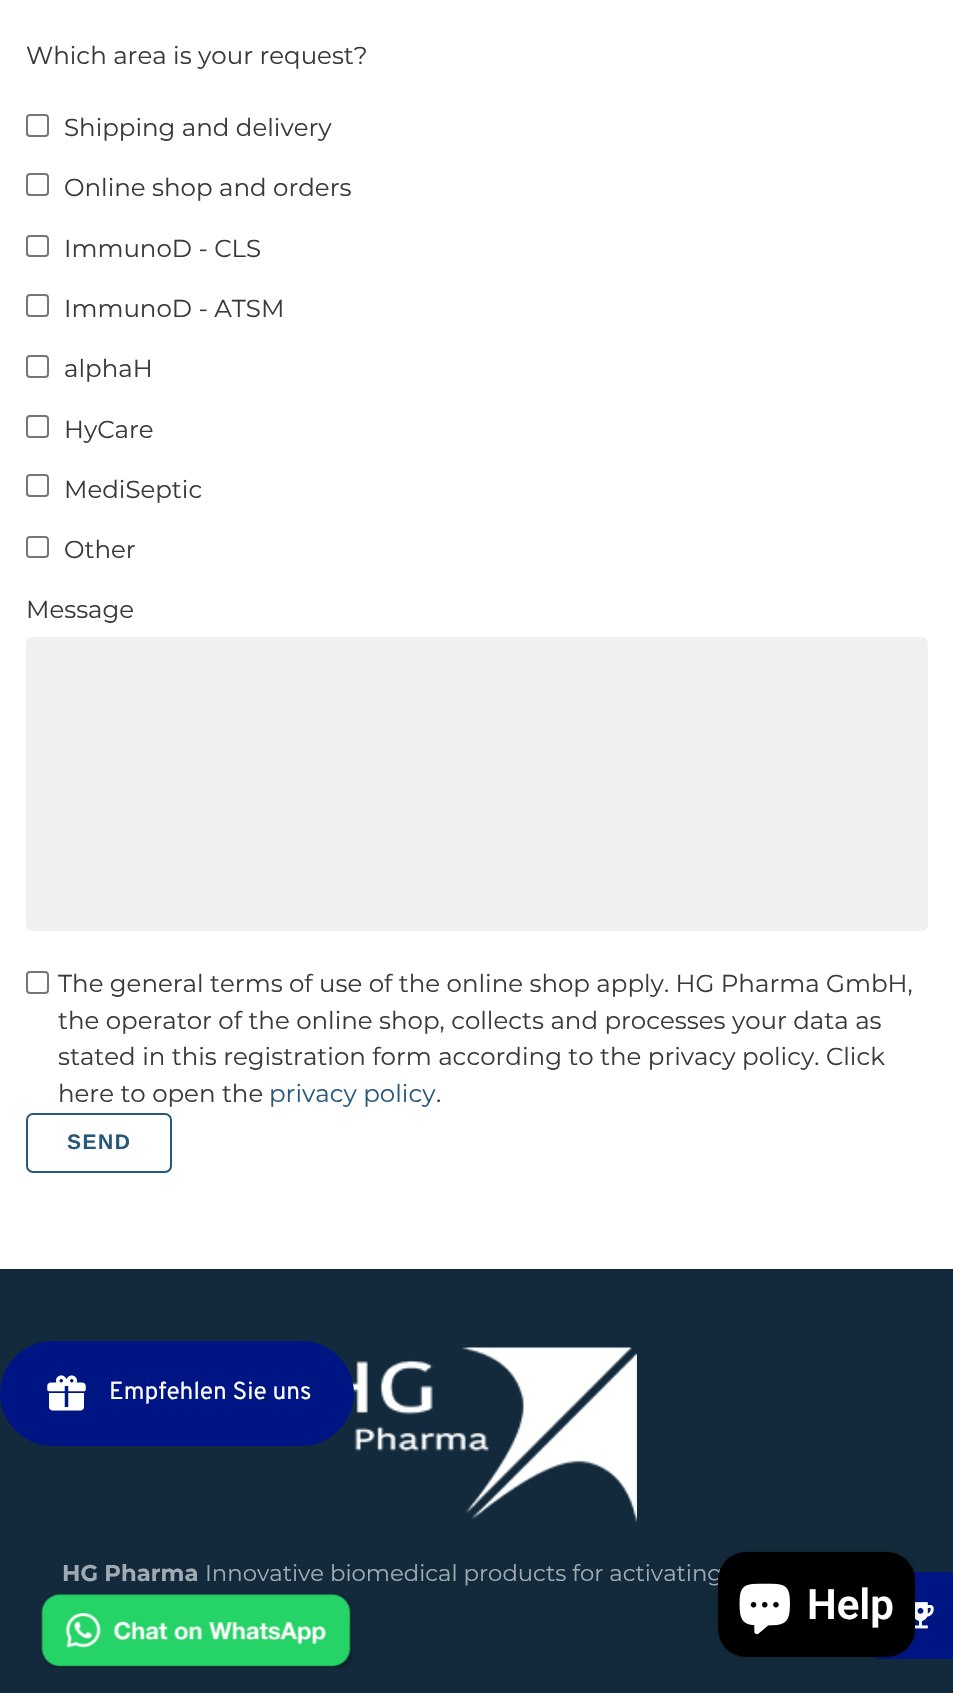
void draw(SkCanvas* canvas) {
  SkPaint paint;
  paint.setAntiAlias(true);
  auto face = [&](const char* family, int weight, float size, bool italic = false) {
    SkFontStyle style(weight, SkFontStyle::kNormal_Width,
      italic ? SkFontStyle::kItalic_Slant : SkFontStyle::kUpright_Slant);
    SkFont result(fontMgr->matchFamilyStyle(family, style), size);
    result.setSubpixel(true);
    return result;
  };
  auto writeSpaced = [&](const char* s, float x, float y, const SkFont& font, const SkPaint& ink, float letter, float word) {
    std::vector<SkGlyphID> glyphs(font.countText(s, strlen(s), SkTextEncoding::kUTF8));
    std::vector<float> xs(glyphs.size());
    font.textToGlyphs(s, strlen(s), SkTextEncoding::kUTF8, glyphs);
    font.getXPos(glyphs, xs, x);
    float extra = 0;
    for (size_t i = 0; i < glyphs.size(); i++) {
      xs[i] += extra;
      extra += letter + word * (glyphs[i] == font.unicharToGlyph(' '));
    }
    canvas->drawTextBlob(SkTextBlob::MakeFromPosHGlyphs(glyphs, xs, y, font), 0, 0, ink);
  };
  auto paste = [&](const char* path, float x, float y, float w, float h) {
    auto image = SkImages::DeferredFromEncodedData(SkData::MakeFromFileName(path));
    canvas->drawImageRect(image, SkRect::MakeXYWH(x, y, w, h), SkSamplingOptions());
  };
  canvas->clear(0xffffffff);
  paint.setStroke(true);
  paint.setStrokeWidth(2);
  paint.setColor(0xff767676);
  canvas->drawRoundRect(SkRect::MakeXYWH(27, 115, 21, 21), 3, 3, paint);
  canvas->drawRoundRect(SkRect::MakeXYWH(27, 174, 21, 21), 3, 3, paint);
  canvas->drawRoundRect(SkRect::MakeXYWH(27, 236, 21, 20), 3, 3, paint);
  canvas->drawRoundRect(SkRect::MakeXYWH(27, 295, 21, 21), 3, 3, paint);
  canvas->drawRoundRect(SkRect::MakeXYWH(27, 356, 21, 21), 3, 3, paint);
  canvas->drawRoundRect(SkRect::MakeXYWH(27, 416, 21, 21), 3, 3, paint);
  canvas->drawRoundRect(SkRect::MakeXYWH(27, 475, 21, 21), 3, 3, paint);
  canvas->drawRoundRect(SkRect::MakeXYWH(27, 537, 21, 20), 3, 3, paint);
  paint.setStroke(false);
  paint.setColor(0xfff0f0f0);
  canvas->drawRoundRect(SkRect::MakeXYWH(26, 637, 902, 294), 7, 7, paint);
  paint.setStroke(true);
  paint.setColor(0xff767676);
  canvas->drawRoundRect(SkRect::MakeXYWH(27, 972, 21, 21), 3, 3, paint);
  paint.setColor(0xff27587b);
  canvas->drawRoundRect(SkRect::MakeXYWH(27, 1114, 144, 58), 6, 6, paint);
  paint.setStroke(false);
  paint.setColor(0xff122a3b);
  canvas->drawRect(SkRect::MakeXYWH(0, 1269, 953, 424), paint);
  paste("img/1.png", 352, 1347, 285, 176);
  paint.setColor(0xff001584);
  canvas->drawRoundRect(SkRect::MakeXYWH(0, 1341, 354, 105), 52.5f, 52.5f, paint);
  paste("img/2.png", 47, 1375, 39, 36);
  paste("img/3.png", 41, 1594, 311, 74);
  canvas->drawRect(SkRect::MakeXYWH(875, 1572, 78, 87), paint);
  paste("img/5.png", 915, 1602, 19, 27);
  paint.setColor(0x26000000);
  paint.setMaskFilter(SkMaskFilter::MakeBlur(kNormal_SkBlurStyle, 4.5f));
  canvas->drawRoundRect(SkRect::MakeXYWH(718, 1552, 197, 105), 28, 28, paint);
  paint.setMaskFilter(nullptr);
  auto f0 = face("Montserrat", 400, 24.5f);
  paint.setColor(0xff3a3a3a);
  {
    const struct { const char* s; float x, y; } items[] = {
      {"Which area is your request?", 26, 64},
      {"Shipping and delivery", 64, 136},
      {"Online shop and orders", 64, 196},
      {"ImmunoD - CLS", 64, 257},
      {"ImmunoD - ATSM", 64, 317},
      {"alphaH", 64, 377},
      {"HyCare", 64, 438},
      {"MediSeptic", 64, 498},
      {"Other", 64, 558},
      {"Message", 26, 618},
      {"The general terms of use of the online shop apply. HG Pharma GmbH,", 58, 992},
      {"the operator of the online shop, collects and processes your data as", 58, 1029},
      {"stated in this registration form according to the privacy policy. Click", 58, 1065},
      {"here to open the", 58, 1102},
    };
    for (auto [s, x, y] : items) {
      canvas->drawString(s, x, y, f0, paint);
    }
  }
  paint.setColor(0xff27587b);
  canvas->drawString("privacy policy", 269, 1102, f0, paint);
  paint.setColor(0xff3a3a3a);
  canvas->drawString(".", 436, 1102, f0, paint);
  auto f1 = face("Liberation Sans", 700, 21);
  paint.setColor(0xff27587b);
  writeSpaced("SEND", 67, 1149, f1, paint, 1.5f, 0);
  auto f2 = face("Montserrat", 700, 22.75f);
  paint.setColor(0xffa0aab1);
  canvas->drawString("HG Pharma", 62, 1581, f2, paint);
  auto f3 = face("Montserrat", 400, 22.75f);
  canvas->drawString("Innovative biomedical products for activating", 205, 1581, f3, paint);
  auto f4 = face("Overpass", 400, 24.5f);
  paint.setColor(0xffffffff);
  canvas->drawString("Empfehlen Sie uns", 109, 1399, f4, paint);
  paint.setColor(0xff000000);
  canvas->drawRoundRect(SkRect::MakeXYWH(718, 1552, 197, 105), 28, 28, paint);
  paste("img/4.png", 739, 1583, 51, 52);
  auto f5 = face("Roboto", 600, 42);
  paint.setColor(0xffffffff);
  canvas->drawString("Help", 807, 1619, f5, paint);
}
